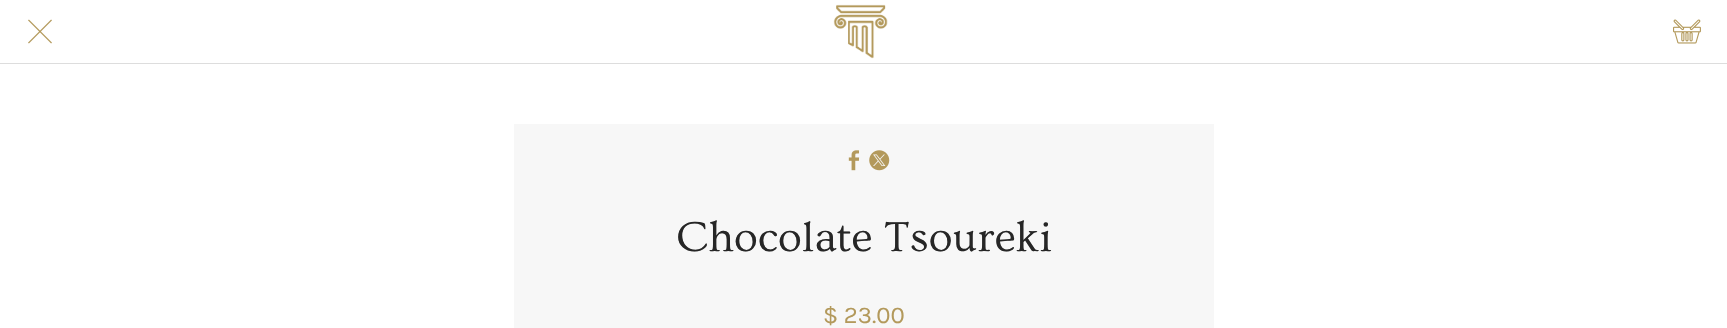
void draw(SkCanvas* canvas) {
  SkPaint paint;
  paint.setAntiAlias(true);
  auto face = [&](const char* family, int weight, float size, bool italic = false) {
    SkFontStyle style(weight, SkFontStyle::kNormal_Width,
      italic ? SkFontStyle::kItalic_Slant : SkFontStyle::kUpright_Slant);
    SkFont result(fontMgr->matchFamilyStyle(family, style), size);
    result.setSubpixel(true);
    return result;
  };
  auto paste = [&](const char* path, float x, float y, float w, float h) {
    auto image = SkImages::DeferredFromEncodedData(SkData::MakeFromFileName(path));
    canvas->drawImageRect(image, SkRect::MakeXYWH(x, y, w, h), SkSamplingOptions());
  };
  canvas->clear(0xffffffff);
  paint.setColor(0xffdddddd);
  canvas->drawRect(SkRect::MakeXYWH(0, 63, 1727, 1), paint);
  paste("img/1.png", 28, 19, 24, 25);
  paste("img/2.png", 833, 4, 55, 55);
  paste("img/3.png", 1673, 19, 28, 25);
  paint.setColor(0xfff7f7f7);
  canvas->drawRect(SkRect::MakeXYWH(514, 124, 700, 204), paint);
  paste("img/4.png", 848, 150, 12, 21);
  paste("img/5.png", 869, 150, 21, 21);
  auto f0 = face("Ovo", 400, 44);
  paint.setColor(0xff262626);
  canvas->drawString("Chocolate Tsoureki", 676, 251, f0, paint);
  auto f1 = face("Karla", 400, 24);
  paint.setColor(0xffb3995b);
  canvas->drawString("$ 23.00", 823, 323, f1, paint);
}
